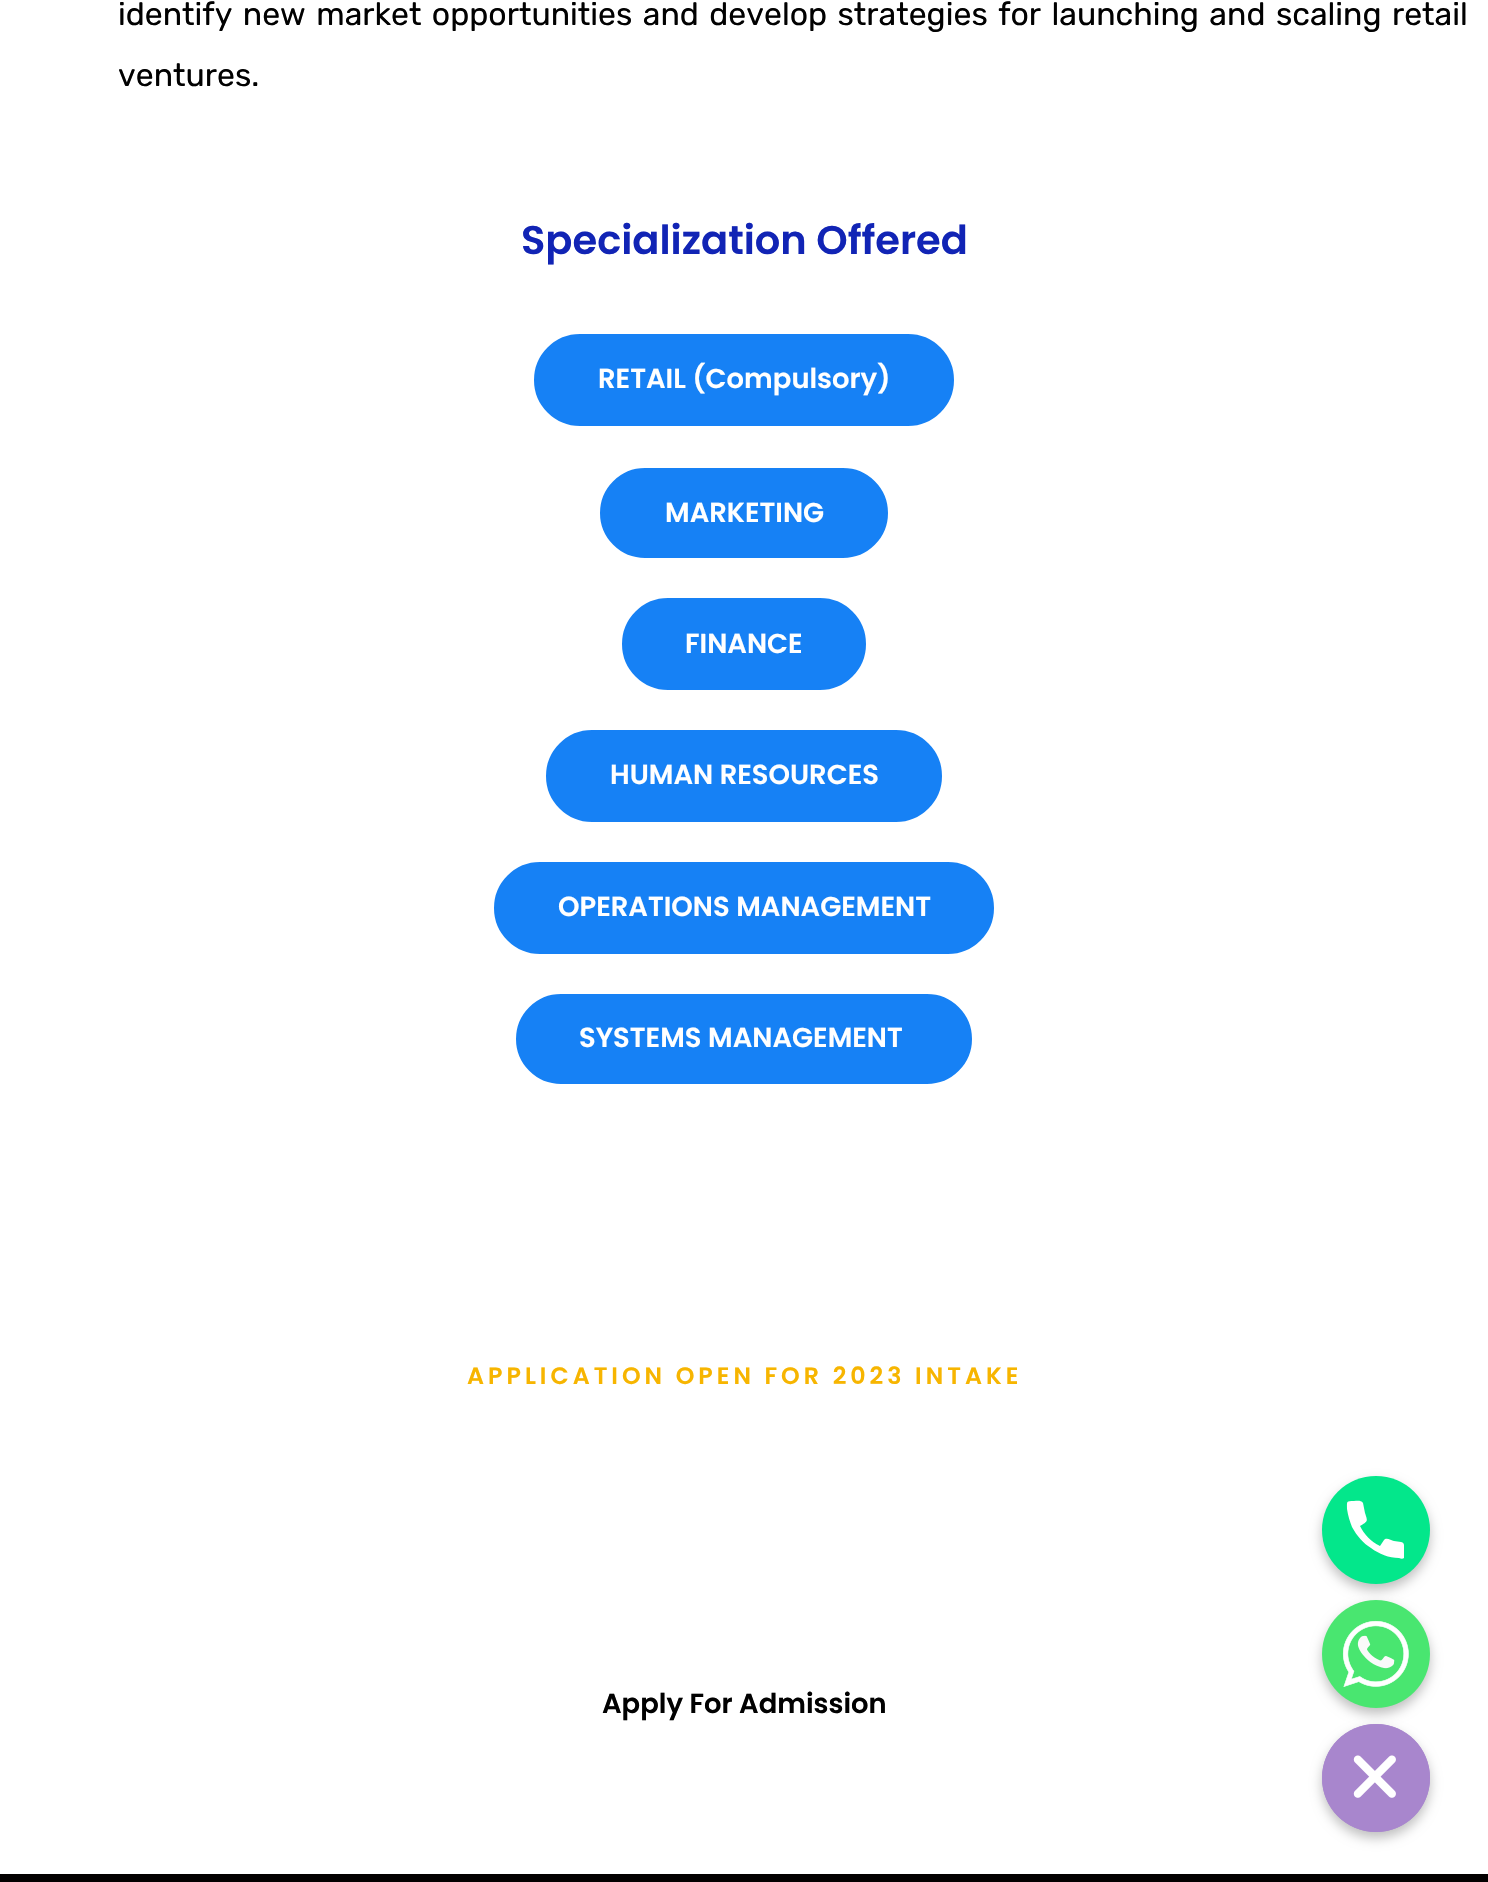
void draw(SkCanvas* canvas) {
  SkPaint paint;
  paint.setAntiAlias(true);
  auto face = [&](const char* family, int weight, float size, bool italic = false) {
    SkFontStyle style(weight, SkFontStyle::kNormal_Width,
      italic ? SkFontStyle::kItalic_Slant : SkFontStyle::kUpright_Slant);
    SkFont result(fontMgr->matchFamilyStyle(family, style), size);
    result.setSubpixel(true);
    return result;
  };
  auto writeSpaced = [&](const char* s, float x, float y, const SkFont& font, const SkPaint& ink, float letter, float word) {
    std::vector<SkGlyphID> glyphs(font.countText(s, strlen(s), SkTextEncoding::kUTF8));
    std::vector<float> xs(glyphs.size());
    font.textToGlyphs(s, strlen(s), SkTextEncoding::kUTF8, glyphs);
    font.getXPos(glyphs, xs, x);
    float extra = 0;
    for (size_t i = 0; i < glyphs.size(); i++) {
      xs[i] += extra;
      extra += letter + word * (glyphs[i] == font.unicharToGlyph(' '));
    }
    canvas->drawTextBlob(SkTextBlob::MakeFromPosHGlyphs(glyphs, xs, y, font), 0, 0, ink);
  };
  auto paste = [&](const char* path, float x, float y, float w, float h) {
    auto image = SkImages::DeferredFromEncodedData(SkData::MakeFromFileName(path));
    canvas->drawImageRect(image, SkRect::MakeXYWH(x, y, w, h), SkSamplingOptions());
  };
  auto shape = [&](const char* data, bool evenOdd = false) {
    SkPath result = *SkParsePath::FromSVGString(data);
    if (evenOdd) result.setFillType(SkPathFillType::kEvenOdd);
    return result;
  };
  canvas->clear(0xffffffff);
  paint.setColor(0xff1681f5);
  canvas->drawRoundRect(SkRect::MakeXYWH(536, 336, 416, 88), 44, 44, paint);
  paint.setStroke(true);
  paint.setStrokeWidth(4);
  canvas->drawRoundRect(SkRect::MakeXYWH(536, 336, 416, 88), 44, 44, paint);
  paint.setStroke(false);
  canvas->drawRoundRect(SkRect::MakeXYWH(602, 470, 284, 86), 43, 43, paint);
  paint.setStroke(true);
  canvas->drawRoundRect(SkRect::MakeXYWH(602, 470, 284, 86), 43, 43, paint);
  paint.setStroke(false);
  canvas->drawRoundRect(SkRect::MakeXYWH(624, 600, 240, 88), 44, 44, paint);
  paint.setStroke(true);
  canvas->drawRoundRect(SkRect::MakeXYWH(624, 600, 240, 88), 44, 44, paint);
  paint.setStroke(false);
  canvas->drawRoundRect(SkRect::MakeXYWH(548, 732, 392, 88), 44, 44, paint);
  paint.setStroke(true);
  canvas->drawRoundRect(SkRect::MakeXYWH(548, 732, 392, 88), 44, 44, paint);
  paint.setStroke(false);
  canvas->drawRoundRect(SkRect::MakeXYWH(496, 864, 496, 88), 44, 44, paint);
  paint.setStroke(true);
  canvas->drawRoundRect(SkRect::MakeXYWH(496, 864, 496, 88), 44, 44, paint);
  paint.setStroke(false);
  canvas->drawRoundRect(SkRect::MakeXYWH(518, 996, 452, 86), 43, 43, paint);
  paint.setStroke(true);
  canvas->drawRoundRect(SkRect::MakeXYWH(518, 996, 452, 86), 43, 43, paint);
  paint.setStroke(false);
  paint.setColor(0xff030000);
  canvas->drawRect(SkRect::MakeXYWH(0, 1874, 1488, 8), paint);
  paint.setColor(0x40000000);
  paint.setMaskFilter(SkMaskFilter::MakeBlur(kNormal_SkBlurStyle, 6));
  canvas->drawRoundRect(SkRect::MakeXYWH(1322, 1482, 108, 108), 54, 54, paint);
  paint.setMaskFilter(nullptr);
  paint.setColor(0xff03e78b);
  canvas->drawCircle(1376, 1530, 54, paint);
  paint.setColor(0xffffffff);
  canvas->drawPath(shape("M1401 1542L1394 1541C1391 1540 1386 1537 1384 1540L1380 1546C1371 1542 1364 1534 1360 1526C1368 1521 1368 1522 1365 1513L1363 1503C1361 1500 1357 1501 1354 1501C1346 1501 1347 1501 1347 1509C1348 1516 1350 1522 1352 1527C1357 1536 1363 1543 1371 1548C1379 1554 1389 1558 1399 1558C1401 1559 1403 1559 1404 1558V1545C1404 1543 1402 1542 1401 1542Z"), paint);
  paint.setColor(0x40000000);
  paint.setMaskFilter(SkMaskFilter::MakeBlur(kNormal_SkBlurStyle, 6));
  canvas->drawRoundRect(SkRect::MakeXYWH(1322, 1606, 108, 108), 54, 54, paint);
  paint.setMaskFilter(nullptr);
  paste("img/1.png", 1322, 1600, 108, 108);
  paint.setMaskFilter(SkMaskFilter::MakeBlur(kNormal_SkBlurStyle, 6));
  canvas->drawRoundRect(SkRect::MakeXYWH(1322, 1730, 108, 108), 54, 54, paint);
  paint.setMaskFilter(nullptr);
  paint.setColor(0xffa886cd);
  canvas->drawPath(shape("M1376 1832C1346 1832 1322 1808 1322 1778C1322 1748 1346 1724 1376 1724C1406 1724 1430 1748 1430 1778C1430 1808 1406 1832 1376 1832Z"), paint);
  paste("img/2.png", 1322, 1724, 108, 108);
  auto f0 = face("Rubik", 400, 32);
  paint.setColor(0xff010101);
  writeSpaced("identify new market opportunities and develop strategies for launching and scaling retail", 118, 25, f0, paint, 0, 2.6f);
  canvas->drawString("ventures.", 118, 86, f0, paint);
  auto f1 = face("Poppins", 600, 40);
  paint.setColor(0xff1124b5);
  canvas->drawString("Specialization Offered", 521, 254, f1, paint);
  auto f2 = face("Poppins", 600, 27.4f);
  paint.setColor(0xffffffff);
  {
    const struct { const char* s; float x, y; } items[] = {
      {"RETAIL (Compulsory)", 598, 388},
      {"MARKETING", 665, 522},
      {"FINANCE", 685, 653},
      {"HUMAN RESOURCES", 610, 784},
      {"OPERATIONS MANAGEMENT", 558, 916},
      {"SYSTEMS MANAGEMENT", 579, 1047},
    };
    for (auto [s, x, y] : items) {
      canvas->drawString(s, x, y, f2, paint);
    }
  }
  auto f3 = face("Poppins", 600, 23.75f);
  paint.setColor(0xfff7b500);
  writeSpaced("APPLICATION OPEN FOR 2023 INTAKE", 467, 1384, f3, paint, 4, 0);
  paint.setColor(0xff010101);
  canvas->drawString("Apply For Admission", 602, 1713, f2, paint);
}
